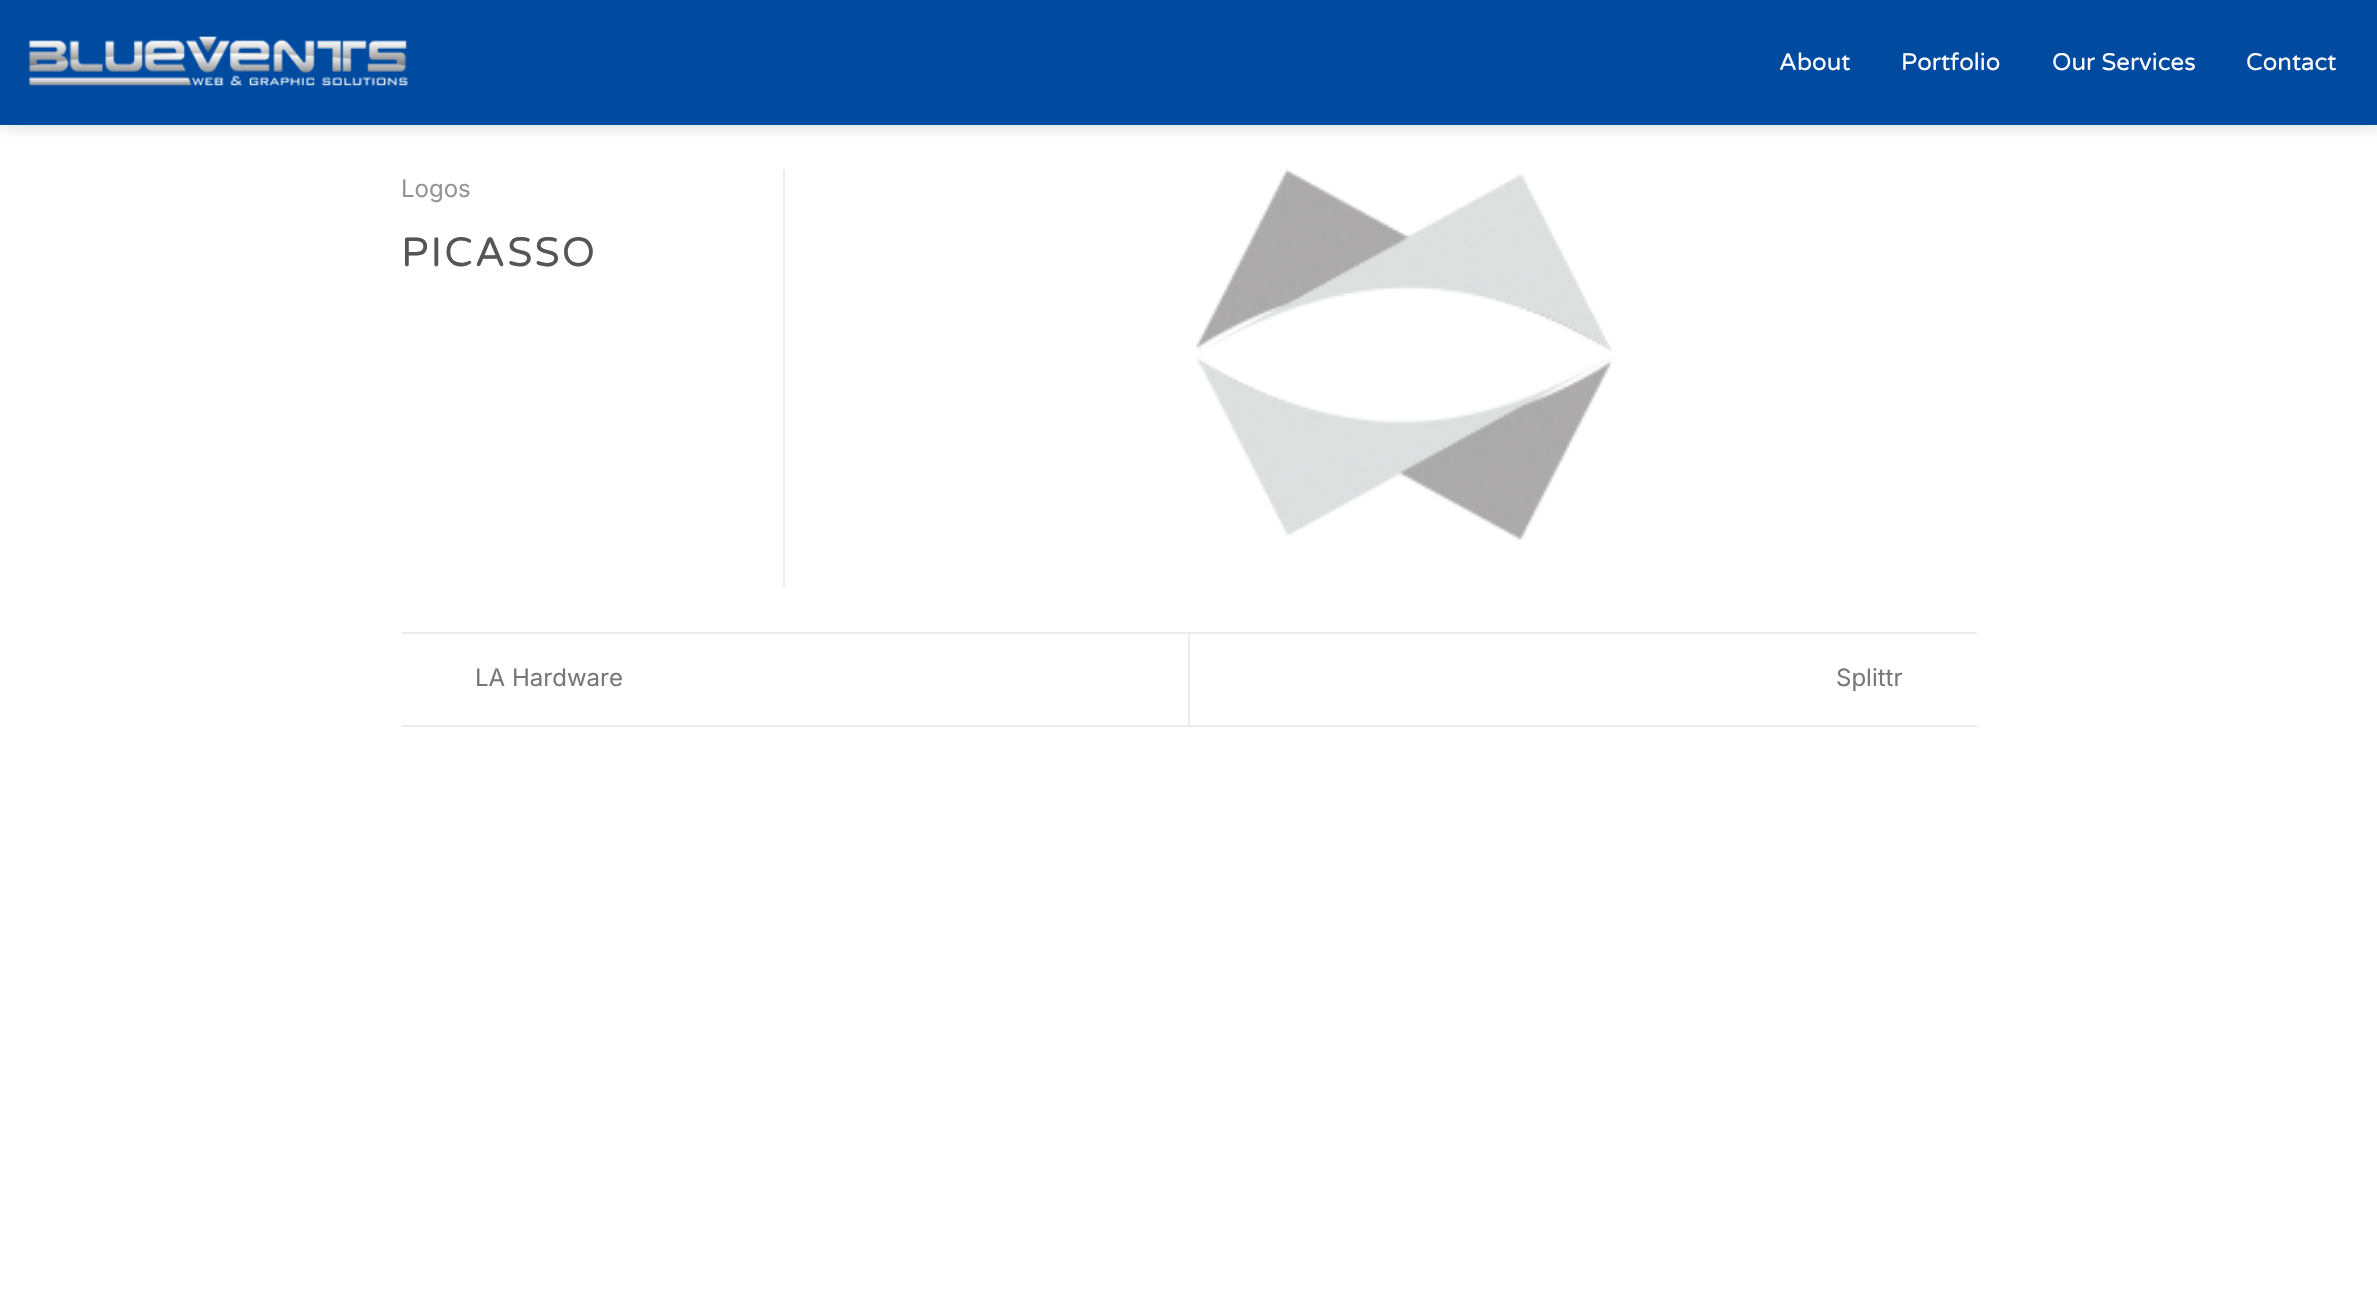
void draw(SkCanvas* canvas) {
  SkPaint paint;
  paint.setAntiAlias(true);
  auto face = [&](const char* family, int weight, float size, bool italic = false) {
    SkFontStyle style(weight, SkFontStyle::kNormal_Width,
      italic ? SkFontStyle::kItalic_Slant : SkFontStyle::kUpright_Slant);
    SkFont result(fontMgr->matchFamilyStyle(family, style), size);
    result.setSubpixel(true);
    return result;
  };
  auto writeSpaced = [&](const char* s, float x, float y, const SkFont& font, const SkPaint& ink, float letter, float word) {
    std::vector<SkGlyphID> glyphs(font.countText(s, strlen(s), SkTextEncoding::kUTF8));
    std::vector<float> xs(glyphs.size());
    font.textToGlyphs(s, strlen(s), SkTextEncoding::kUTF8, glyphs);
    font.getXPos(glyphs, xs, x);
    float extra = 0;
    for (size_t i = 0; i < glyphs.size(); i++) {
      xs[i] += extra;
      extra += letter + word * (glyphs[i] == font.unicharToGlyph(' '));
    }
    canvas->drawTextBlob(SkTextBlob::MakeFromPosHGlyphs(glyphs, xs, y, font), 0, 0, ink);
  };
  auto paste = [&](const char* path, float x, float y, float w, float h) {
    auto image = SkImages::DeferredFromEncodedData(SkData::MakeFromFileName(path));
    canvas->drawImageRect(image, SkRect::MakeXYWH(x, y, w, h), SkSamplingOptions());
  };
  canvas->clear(0xffffffff);
  paint.setColor(0x26000000);
  paint.setMaskFilter(SkMaskFilter::MakeBlur(kNormal_SkBlurStyle, 7.5f));
  canvas->drawRect(SkRect::MakeXYWH(2, 2, 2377, 124), paint);
  paint.setMaskFilter(nullptr);
  paint.setColor(0xff004aa0);
  canvas->drawRect(SkRect::MakeXYWH(0, 0, 2377, 125), paint);
  paste("img/1.png", 28, 36, 380, 50);
  paint.setColor(0xffececec);
  canvas->drawRect(SkRect::MakeXYWH(783, 170, 2, 417), paint);
  paste("img/2.png", 1196, 169, 417, 371);
  {
    const struct { float x, y, w, h; SkColor color; } items[] = {
      {402, 632, 1575, 2, 0xffececec},
      {402, 725, 1575, 2, 0xffececec},
      {1188, 633, 2, 92, 0xffececec},
    };
    for (auto [x, y, w, h, color] : items) {
      paint.setColor(color);
      canvas->drawRect(SkRect::MakeXYWH(x, y, w, h), paint);
    }
  }
  auto f0 = face("Varela Round", 400, 24);
  paint.setColor(0xffffffff);
  {
    const struct { const char* s; float x, y; } items[] = {
      {"About", 1779, 70},
      {"Portfolio", 1901, 70},
      {"Our Services", 2052, 70},
      {"Contact", 2246, 70},
    };
    for (auto [s, x, y] : items) {
      canvas->drawString(s, x, y, f0, paint);
    }
  }
  auto f1 = face("Inter", 400, 24);
  paint.setColor(0xff949494);
  canvas->drawString("Logos", 401, 197, f1, paint);
  auto f2 = face("Varela Round", 400, 41);
  paint.setColor(0xff555555);
  writeSpaced("PICASSO", 401, 266, f2, paint, 2, 0);
  paint.setColor(0xff777777);
  canvas->drawString("LA Hardware", 475, 686, f1, paint);
  canvas->drawString("Splittr", 1836, 686, f1, paint);
}
